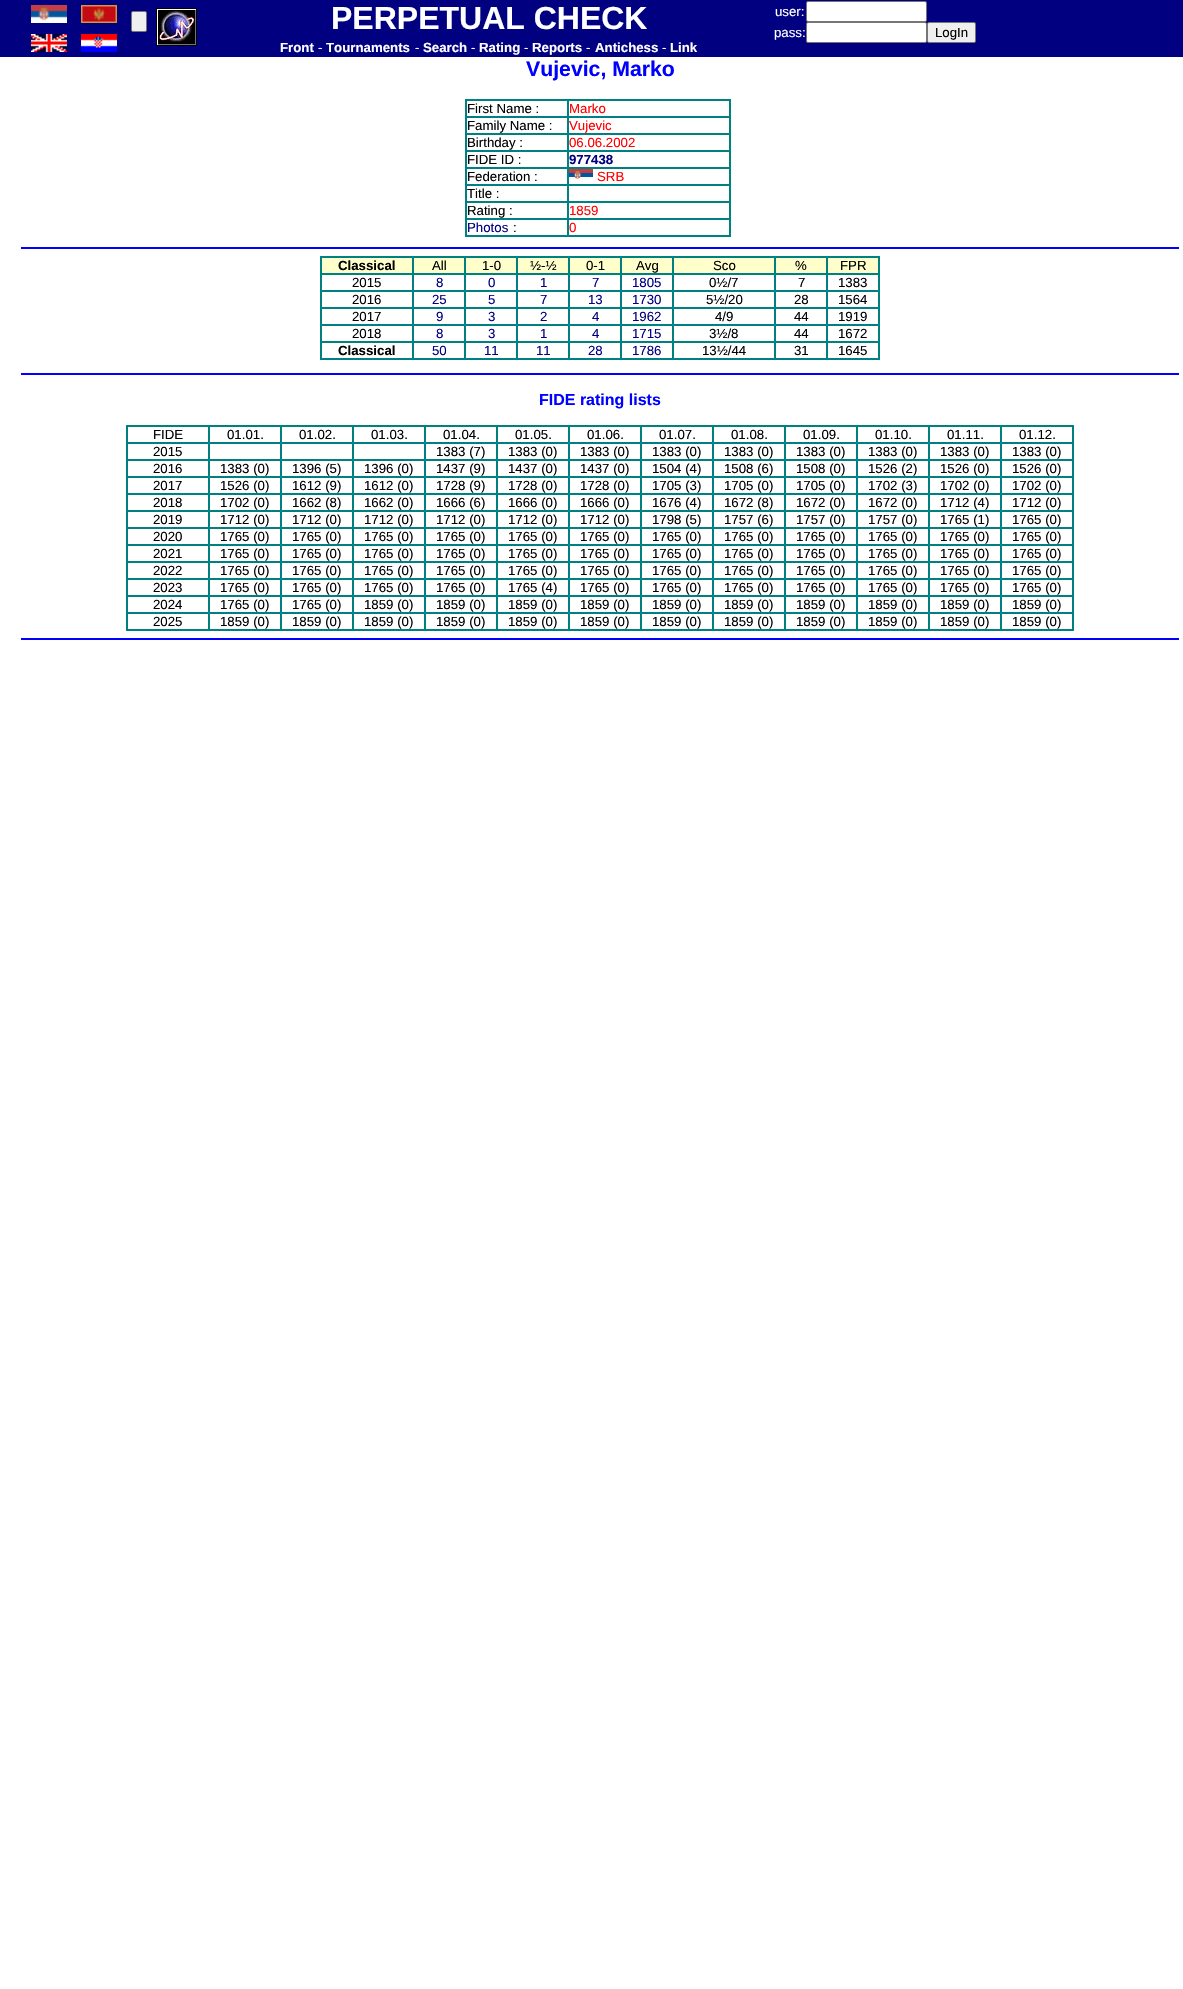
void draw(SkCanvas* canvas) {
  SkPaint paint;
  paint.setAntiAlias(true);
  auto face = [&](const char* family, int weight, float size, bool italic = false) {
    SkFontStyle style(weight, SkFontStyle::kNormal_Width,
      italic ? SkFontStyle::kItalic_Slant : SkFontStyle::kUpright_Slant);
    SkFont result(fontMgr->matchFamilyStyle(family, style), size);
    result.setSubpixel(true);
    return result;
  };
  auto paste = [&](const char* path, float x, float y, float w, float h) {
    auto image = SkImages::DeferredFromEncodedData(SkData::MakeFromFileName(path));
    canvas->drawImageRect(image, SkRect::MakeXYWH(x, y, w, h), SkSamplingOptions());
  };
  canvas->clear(0xffffffff);
  paint.setColor(0xff000080);
  canvas->drawRect(SkRect::MakeXYWH(0, 0, 1183, 57), paint);
  paste("img/1.png", 31, 5, 36, 18);
  paste("img/2.png", 81, 5, 36, 18);
  paste("img/3.png", 31, 34, 36, 18);
  paste("img/4.png", 81, 34, 36, 18);
  paint.setColor(0xffefefef);
  canvas->drawRoundRect(SkRect::MakeXYWH(131.5f, 11.5f, 15, 20), 1.5f, 1.5f, paint);
  paint.setStroke(true);
  paint.setStrokeWidth(1);
  paint.setColor(0xff767676);
  canvas->drawRoundRect(SkRect::MakeXYWH(131.5f, 11.5f, 15, 20), 1.5f, 1.5f, paint);
  paste("img/5.png", 156, 8, 41, 38);
  paint.setStroke(false);
  paint.setColor(0xffffffff);
  canvas->drawRoundRect(SkRect::MakeXYWH(806.5f, 1.5f, 120, 20), 1.5f, 1.5f, paint);
  paint.setStroke(true);
  paint.setColor(0xff767676);
  canvas->drawRoundRect(SkRect::MakeXYWH(806.5f, 1.5f, 120, 20), 1.5f, 1.5f, paint);
  paint.setStroke(false);
  paint.setColor(0xffffffff);
  canvas->drawRoundRect(SkRect::MakeXYWH(806.5f, 22.5f, 120, 20), 1.5f, 1.5f, paint);
  paint.setStroke(true);
  paint.setColor(0xff767676);
  canvas->drawRoundRect(SkRect::MakeXYWH(806.5f, 22.5f, 120, 20), 1.5f, 1.5f, paint);
  paint.setStroke(false);
  paint.setColor(0xffefefef);
  canvas->drawRoundRect(SkRect::MakeXYWH(927.5f, 22.5f, 48, 20), 1.5f, 1.5f, paint);
  paint.setStroke(true);
  paint.setColor(0xff767676);
  canvas->drawRoundRect(SkRect::MakeXYWH(927.5f, 22.5f, 48, 20), 1.5f, 1.5f, paint);
  paint.setColor(0xff008080);
  canvas->drawRect(SkRect::MakeXYWH(465.5f, 99.5f, 265, 137), paint);
  canvas->drawRect(SkRect::MakeXYWH(466.5f, 100.5f, 101, 16), paint);
  canvas->drawRect(SkRect::MakeXYWH(568.5f, 100.5f, 161, 16), paint);
  canvas->drawRect(SkRect::MakeXYWH(466.5f, 117.5f, 101, 16), paint);
  canvas->drawRect(SkRect::MakeXYWH(568.5f, 117.5f, 161, 16), paint);
  canvas->drawRect(SkRect::MakeXYWH(466.5f, 134.5f, 101, 16), paint);
  canvas->drawRect(SkRect::MakeXYWH(568.5f, 134.5f, 161, 16), paint);
  canvas->drawRect(SkRect::MakeXYWH(466.5f, 151.5f, 101, 16), paint);
  canvas->drawRect(SkRect::MakeXYWH(568.5f, 151.5f, 161, 16), paint);
  canvas->drawRect(SkRect::MakeXYWH(466.5f, 168.5f, 101, 16), paint);
  canvas->drawRect(SkRect::MakeXYWH(568.5f, 168.5f, 161, 16), paint);
  paste("img/6.png", 569, 169, 24, 10);
  canvas->drawRect(SkRect::MakeXYWH(466.5f, 185.5f, 101, 16), paint);
  canvas->drawRect(SkRect::MakeXYWH(568.5f, 185.5f, 161, 16), paint);
  canvas->drawRect(SkRect::MakeXYWH(466.5f, 202.5f, 101, 16), paint);
  canvas->drawRect(SkRect::MakeXYWH(568.5f, 202.5f, 161, 16), paint);
  canvas->drawRect(SkRect::MakeXYWH(466.5f, 219.5f, 101, 16), paint);
  canvas->drawRect(SkRect::MakeXYWH(568.5f, 219.5f, 161, 16), paint);
  paint.setStroke(false);
  paint.setColor(0xff0000ff);
  canvas->drawRect(SkRect::MakeXYWH(21, 247, 1158, 2), paint);
  paint.setStroke(true);
  paint.setColor(0xff008080);
  canvas->drawRect(SkRect::MakeXYWH(320.5f, 256.5f, 559, 103), paint);
  paint.setStroke(false);
  paint.setColor(0xffffffcc);
  canvas->drawRect(SkRect::MakeXYWH(321.5f, 257.5f, 91, 16), paint);
  paint.setStroke(true);
  paint.setColor(0xff008080);
  canvas->drawRect(SkRect::MakeXYWH(321.5f, 257.5f, 91, 16), paint);
  paint.setStroke(false);
  paint.setColor(0xffffffcc);
  canvas->drawRect(SkRect::MakeXYWH(413.5f, 257.5f, 51, 16), paint);
  paint.setStroke(true);
  paint.setColor(0xff008080);
  canvas->drawRect(SkRect::MakeXYWH(413.5f, 257.5f, 51, 16), paint);
  paint.setStroke(false);
  paint.setColor(0xffffffcc);
  canvas->drawRect(SkRect::MakeXYWH(465.5f, 257.5f, 51, 16), paint);
  paint.setStroke(true);
  paint.setColor(0xff008080);
  canvas->drawRect(SkRect::MakeXYWH(465.5f, 257.5f, 51, 16), paint);
  paint.setStroke(false);
  paint.setColor(0xffffffcc);
  canvas->drawRect(SkRect::MakeXYWH(517.5f, 257.5f, 51, 16), paint);
  paint.setStroke(true);
  paint.setColor(0xff008080);
  canvas->drawRect(SkRect::MakeXYWH(517.5f, 257.5f, 51, 16), paint);
  paint.setStroke(false);
  paint.setColor(0xffffffcc);
  canvas->drawRect(SkRect::MakeXYWH(569.5f, 257.5f, 51, 16), paint);
  paint.setStroke(true);
  paint.setColor(0xff008080);
  canvas->drawRect(SkRect::MakeXYWH(569.5f, 257.5f, 51, 16), paint);
  paint.setStroke(false);
  paint.setColor(0xffffffcc);
  canvas->drawRect(SkRect::MakeXYWH(621.5f, 257.5f, 51, 16), paint);
  paint.setStroke(true);
  paint.setColor(0xff008080);
  canvas->drawRect(SkRect::MakeXYWH(621.5f, 257.5f, 51, 16), paint);
  paint.setStroke(false);
  paint.setColor(0xffffffcc);
  canvas->drawRect(SkRect::MakeXYWH(673.5f, 257.5f, 101, 16), paint);
  paint.setStroke(true);
  paint.setColor(0xff008080);
  canvas->drawRect(SkRect::MakeXYWH(673.5f, 257.5f, 101, 16), paint);
  paint.setStroke(false);
  paint.setColor(0xffffffcc);
  canvas->drawRect(SkRect::MakeXYWH(775.5f, 257.5f, 51, 16), paint);
  paint.setStroke(true);
  paint.setColor(0xff008080);
  canvas->drawRect(SkRect::MakeXYWH(775.5f, 257.5f, 51, 16), paint);
  paint.setStroke(false);
  paint.setColor(0xffffffcc);
  canvas->drawRect(SkRect::MakeXYWH(827.5f, 257.5f, 51, 16), paint);
  paint.setStroke(true);
  paint.setColor(0xff008080);
  canvas->drawRect(SkRect::MakeXYWH(827.5f, 257.5f, 51, 16), paint);
  canvas->drawRect(SkRect::MakeXYWH(321.5f, 274.5f, 91, 16), paint);
  canvas->drawRect(SkRect::MakeXYWH(413.5f, 274.5f, 51, 16), paint);
  canvas->drawRect(SkRect::MakeXYWH(465.5f, 274.5f, 51, 16), paint);
  canvas->drawRect(SkRect::MakeXYWH(517.5f, 274.5f, 51, 16), paint);
  canvas->drawRect(SkRect::MakeXYWH(569.5f, 274.5f, 51, 16), paint);
  canvas->drawRect(SkRect::MakeXYWH(621.5f, 274.5f, 51, 16), paint);
  canvas->drawRect(SkRect::MakeXYWH(673.5f, 274.5f, 101, 16), paint);
  canvas->drawRect(SkRect::MakeXYWH(775.5f, 274.5f, 51, 16), paint);
  canvas->drawRect(SkRect::MakeXYWH(827.5f, 274.5f, 51, 16), paint);
  canvas->drawRect(SkRect::MakeXYWH(321.5f, 291.5f, 91, 16), paint);
  canvas->drawRect(SkRect::MakeXYWH(413.5f, 291.5f, 51, 16), paint);
  canvas->drawRect(SkRect::MakeXYWH(465.5f, 291.5f, 51, 16), paint);
  canvas->drawRect(SkRect::MakeXYWH(517.5f, 291.5f, 51, 16), paint);
  canvas->drawRect(SkRect::MakeXYWH(569.5f, 291.5f, 51, 16), paint);
  canvas->drawRect(SkRect::MakeXYWH(621.5f, 291.5f, 51, 16), paint);
  canvas->drawRect(SkRect::MakeXYWH(673.5f, 291.5f, 101, 16), paint);
  canvas->drawRect(SkRect::MakeXYWH(775.5f, 291.5f, 51, 16), paint);
  canvas->drawRect(SkRect::MakeXYWH(827.5f, 291.5f, 51, 16), paint);
  canvas->drawRect(SkRect::MakeXYWH(321.5f, 308.5f, 91, 16), paint);
  canvas->drawRect(SkRect::MakeXYWH(413.5f, 308.5f, 51, 16), paint);
  canvas->drawRect(SkRect::MakeXYWH(465.5f, 308.5f, 51, 16), paint);
  canvas->drawRect(SkRect::MakeXYWH(517.5f, 308.5f, 51, 16), paint);
  canvas->drawRect(SkRect::MakeXYWH(569.5f, 308.5f, 51, 16), paint);
  canvas->drawRect(SkRect::MakeXYWH(621.5f, 308.5f, 51, 16), paint);
  canvas->drawRect(SkRect::MakeXYWH(673.5f, 308.5f, 101, 16), paint);
  canvas->drawRect(SkRect::MakeXYWH(775.5f, 308.5f, 51, 16), paint);
  canvas->drawRect(SkRect::MakeXYWH(827.5f, 308.5f, 51, 16), paint);
  canvas->drawRect(SkRect::MakeXYWH(321.5f, 325.5f, 91, 16), paint);
  canvas->drawRect(SkRect::MakeXYWH(413.5f, 325.5f, 51, 16), paint);
  canvas->drawRect(SkRect::MakeXYWH(465.5f, 325.5f, 51, 16), paint);
  canvas->drawRect(SkRect::MakeXYWH(517.5f, 325.5f, 51, 16), paint);
  canvas->drawRect(SkRect::MakeXYWH(569.5f, 325.5f, 51, 16), paint);
  canvas->drawRect(SkRect::MakeXYWH(621.5f, 325.5f, 51, 16), paint);
  canvas->drawRect(SkRect::MakeXYWH(673.5f, 325.5f, 101, 16), paint);
  canvas->drawRect(SkRect::MakeXYWH(775.5f, 325.5f, 51, 16), paint);
  canvas->drawRect(SkRect::MakeXYWH(827.5f, 325.5f, 51, 16), paint);
  canvas->drawRect(SkRect::MakeXYWH(321.5f, 342.5f, 91, 16), paint);
  canvas->drawRect(SkRect::MakeXYWH(413.5f, 342.5f, 51, 16), paint);
  canvas->drawRect(SkRect::MakeXYWH(465.5f, 342.5f, 51, 16), paint);
  canvas->drawRect(SkRect::MakeXYWH(517.5f, 342.5f, 51, 16), paint);
  canvas->drawRect(SkRect::MakeXYWH(569.5f, 342.5f, 51, 16), paint);
  canvas->drawRect(SkRect::MakeXYWH(621.5f, 342.5f, 51, 16), paint);
  canvas->drawRect(SkRect::MakeXYWH(673.5f, 342.5f, 101, 16), paint);
  canvas->drawRect(SkRect::MakeXYWH(775.5f, 342.5f, 51, 16), paint);
  canvas->drawRect(SkRect::MakeXYWH(827.5f, 342.5f, 51, 16), paint);
  paint.setStroke(false);
  paint.setColor(0xff0000ff);
  canvas->drawRect(SkRect::MakeXYWH(21, 373, 1158, 2), paint);
  paint.setStroke(true);
  paint.setColor(0xff008080);
  canvas->drawRect(SkRect::MakeXYWH(126.5f, 425.5f, 947, 205), paint);
  canvas->drawRect(SkRect::MakeXYWH(127.5f, 426.5f, 81, 16), paint);
  canvas->drawRect(SkRect::MakeXYWH(209.5f, 426.5f, 71, 16), paint);
  canvas->drawRect(SkRect::MakeXYWH(281.5f, 426.5f, 71, 16), paint);
  canvas->drawRect(SkRect::MakeXYWH(353.5f, 426.5f, 71, 16), paint);
  canvas->drawRect(SkRect::MakeXYWH(425.5f, 426.5f, 71, 16), paint);
  canvas->drawRect(SkRect::MakeXYWH(497.5f, 426.5f, 71, 16), paint);
  canvas->drawRect(SkRect::MakeXYWH(569.5f, 426.5f, 71, 16), paint);
  canvas->drawRect(SkRect::MakeXYWH(641.5f, 426.5f, 71, 16), paint);
  canvas->drawRect(SkRect::MakeXYWH(713.5f, 426.5f, 71, 16), paint);
  canvas->drawRect(SkRect::MakeXYWH(785.5f, 426.5f, 71, 16), paint);
  canvas->drawRect(SkRect::MakeXYWH(857.5f, 426.5f, 71, 16), paint);
  canvas->drawRect(SkRect::MakeXYWH(929.5f, 426.5f, 71, 16), paint);
  canvas->drawRect(SkRect::MakeXYWH(1001.5f, 426.5f, 71, 16), paint);
  canvas->drawRect(SkRect::MakeXYWH(127.5f, 443.5f, 81, 16), paint);
  canvas->drawRect(SkRect::MakeXYWH(209.5f, 443.5f, 71, 16), paint);
  canvas->drawRect(SkRect::MakeXYWH(281.5f, 443.5f, 71, 16), paint);
  canvas->drawRect(SkRect::MakeXYWH(353.5f, 443.5f, 71, 16), paint);
  canvas->drawRect(SkRect::MakeXYWH(425.5f, 443.5f, 71, 16), paint);
  canvas->drawRect(SkRect::MakeXYWH(497.5f, 443.5f, 71, 16), paint);
  canvas->drawRect(SkRect::MakeXYWH(569.5f, 443.5f, 71, 16), paint);
  canvas->drawRect(SkRect::MakeXYWH(641.5f, 443.5f, 71, 16), paint);
  canvas->drawRect(SkRect::MakeXYWH(713.5f, 443.5f, 71, 16), paint);
  canvas->drawRect(SkRect::MakeXYWH(785.5f, 443.5f, 71, 16), paint);
  canvas->drawRect(SkRect::MakeXYWH(857.5f, 443.5f, 71, 16), paint);
  canvas->drawRect(SkRect::MakeXYWH(929.5f, 443.5f, 71, 16), paint);
  canvas->drawRect(SkRect::MakeXYWH(1001.5f, 443.5f, 71, 16), paint);
  canvas->drawRect(SkRect::MakeXYWH(127.5f, 460.5f, 81, 16), paint);
  canvas->drawRect(SkRect::MakeXYWH(209.5f, 460.5f, 71, 16), paint);
  canvas->drawRect(SkRect::MakeXYWH(281.5f, 460.5f, 71, 16), paint);
  canvas->drawRect(SkRect::MakeXYWH(353.5f, 460.5f, 71, 16), paint);
  canvas->drawRect(SkRect::MakeXYWH(425.5f, 460.5f, 71, 16), paint);
  canvas->drawRect(SkRect::MakeXYWH(497.5f, 460.5f, 71, 16), paint);
  canvas->drawRect(SkRect::MakeXYWH(569.5f, 460.5f, 71, 16), paint);
  canvas->drawRect(SkRect::MakeXYWH(641.5f, 460.5f, 71, 16), paint);
  canvas->drawRect(SkRect::MakeXYWH(713.5f, 460.5f, 71, 16), paint);
  canvas->drawRect(SkRect::MakeXYWH(785.5f, 460.5f, 71, 16), paint);
  canvas->drawRect(SkRect::MakeXYWH(857.5f, 460.5f, 71, 16), paint);
  canvas->drawRect(SkRect::MakeXYWH(929.5f, 460.5f, 71, 16), paint);
  canvas->drawRect(SkRect::MakeXYWH(1001.5f, 460.5f, 71, 16), paint);
  canvas->drawRect(SkRect::MakeXYWH(127.5f, 477.5f, 81, 16), paint);
  canvas->drawRect(SkRect::MakeXYWH(209.5f, 477.5f, 71, 16), paint);
  canvas->drawRect(SkRect::MakeXYWH(281.5f, 477.5f, 71, 16), paint);
  canvas->drawRect(SkRect::MakeXYWH(353.5f, 477.5f, 71, 16), paint);
  canvas->drawRect(SkRect::MakeXYWH(425.5f, 477.5f, 71, 16), paint);
  canvas->drawRect(SkRect::MakeXYWH(497.5f, 477.5f, 71, 16), paint);
  canvas->drawRect(SkRect::MakeXYWH(569.5f, 477.5f, 71, 16), paint);
  canvas->drawRect(SkRect::MakeXYWH(641.5f, 477.5f, 71, 16), paint);
  canvas->drawRect(SkRect::MakeXYWH(713.5f, 477.5f, 71, 16), paint);
  canvas->drawRect(SkRect::MakeXYWH(785.5f, 477.5f, 71, 16), paint);
  canvas->drawRect(SkRect::MakeXYWH(857.5f, 477.5f, 71, 16), paint);
  canvas->drawRect(SkRect::MakeXYWH(929.5f, 477.5f, 71, 16), paint);
  canvas->drawRect(SkRect::MakeXYWH(1001.5f, 477.5f, 71, 16), paint);
  canvas->drawRect(SkRect::MakeXYWH(127.5f, 494.5f, 81, 16), paint);
  canvas->drawRect(SkRect::MakeXYWH(209.5f, 494.5f, 71, 16), paint);
  canvas->drawRect(SkRect::MakeXYWH(281.5f, 494.5f, 71, 16), paint);
  canvas->drawRect(SkRect::MakeXYWH(353.5f, 494.5f, 71, 16), paint);
  canvas->drawRect(SkRect::MakeXYWH(425.5f, 494.5f, 71, 16), paint);
  canvas->drawRect(SkRect::MakeXYWH(497.5f, 494.5f, 71, 16), paint);
  canvas->drawRect(SkRect::MakeXYWH(569.5f, 494.5f, 71, 16), paint);
  canvas->drawRect(SkRect::MakeXYWH(641.5f, 494.5f, 71, 16), paint);
  canvas->drawRect(SkRect::MakeXYWH(713.5f, 494.5f, 71, 16), paint);
  canvas->drawRect(SkRect::MakeXYWH(785.5f, 494.5f, 71, 16), paint);
  canvas->drawRect(SkRect::MakeXYWH(857.5f, 494.5f, 71, 16), paint);
  canvas->drawRect(SkRect::MakeXYWH(929.5f, 494.5f, 71, 16), paint);
  canvas->drawRect(SkRect::MakeXYWH(1001.5f, 494.5f, 71, 16), paint);
  canvas->drawRect(SkRect::MakeXYWH(127.5f, 511.5f, 81, 16), paint);
  canvas->drawRect(SkRect::MakeXYWH(209.5f, 511.5f, 71, 16), paint);
  canvas->drawRect(SkRect::MakeXYWH(281.5f, 511.5f, 71, 16), paint);
  canvas->drawRect(SkRect::MakeXYWH(353.5f, 511.5f, 71, 16), paint);
  canvas->drawRect(SkRect::MakeXYWH(425.5f, 511.5f, 71, 16), paint);
  canvas->drawRect(SkRect::MakeXYWH(497.5f, 511.5f, 71, 16), paint);
  canvas->drawRect(SkRect::MakeXYWH(569.5f, 511.5f, 71, 16), paint);
  canvas->drawRect(SkRect::MakeXYWH(641.5f, 511.5f, 71, 16), paint);
  canvas->drawRect(SkRect::MakeXYWH(713.5f, 511.5f, 71, 16), paint);
  canvas->drawRect(SkRect::MakeXYWH(785.5f, 511.5f, 71, 16), paint);
  canvas->drawRect(SkRect::MakeXYWH(857.5f, 511.5f, 71, 16), paint);
  canvas->drawRect(SkRect::MakeXYWH(929.5f, 511.5f, 71, 16), paint);
  canvas->drawRect(SkRect::MakeXYWH(1001.5f, 511.5f, 71, 16), paint);
  canvas->drawRect(SkRect::MakeXYWH(127.5f, 528.5f, 81, 16), paint);
  canvas->drawRect(SkRect::MakeXYWH(209.5f, 528.5f, 71, 16), paint);
  canvas->drawRect(SkRect::MakeXYWH(281.5f, 528.5f, 71, 16), paint);
  canvas->drawRect(SkRect::MakeXYWH(353.5f, 528.5f, 71, 16), paint);
  canvas->drawRect(SkRect::MakeXYWH(425.5f, 528.5f, 71, 16), paint);
  canvas->drawRect(SkRect::MakeXYWH(497.5f, 528.5f, 71, 16), paint);
  canvas->drawRect(SkRect::MakeXYWH(569.5f, 528.5f, 71, 16), paint);
  canvas->drawRect(SkRect::MakeXYWH(641.5f, 528.5f, 71, 16), paint);
  canvas->drawRect(SkRect::MakeXYWH(713.5f, 528.5f, 71, 16), paint);
  canvas->drawRect(SkRect::MakeXYWH(785.5f, 528.5f, 71, 16), paint);
  canvas->drawRect(SkRect::MakeXYWH(857.5f, 528.5f, 71, 16), paint);
  canvas->drawRect(SkRect::MakeXYWH(929.5f, 528.5f, 71, 16), paint);
  canvas->drawRect(SkRect::MakeXYWH(1001.5f, 528.5f, 71, 16), paint);
  canvas->drawRect(SkRect::MakeXYWH(127.5f, 545.5f, 81, 16), paint);
  canvas->drawRect(SkRect::MakeXYWH(209.5f, 545.5f, 71, 16), paint);
  canvas->drawRect(SkRect::MakeXYWH(281.5f, 545.5f, 71, 16), paint);
  canvas->drawRect(SkRect::MakeXYWH(353.5f, 545.5f, 71, 16), paint);
  canvas->drawRect(SkRect::MakeXYWH(425.5f, 545.5f, 71, 16), paint);
  canvas->drawRect(SkRect::MakeXYWH(497.5f, 545.5f, 71, 16), paint);
  canvas->drawRect(SkRect::MakeXYWH(569.5f, 545.5f, 71, 16), paint);
  canvas->drawRect(SkRect::MakeXYWH(641.5f, 545.5f, 71, 16), paint);
  canvas->drawRect(SkRect::MakeXYWH(713.5f, 545.5f, 71, 16), paint);
  canvas->drawRect(SkRect::MakeXYWH(785.5f, 545.5f, 71, 16), paint);
  canvas->drawRect(SkRect::MakeXYWH(857.5f, 545.5f, 71, 16), paint);
  canvas->drawRect(SkRect::MakeXYWH(929.5f, 545.5f, 71, 16), paint);
  canvas->drawRect(SkRect::MakeXYWH(1001.5f, 545.5f, 71, 16), paint);
  canvas->drawRect(SkRect::MakeXYWH(127.5f, 562.5f, 81, 16), paint);
  canvas->drawRect(SkRect::MakeXYWH(209.5f, 562.5f, 71, 16), paint);
  canvas->drawRect(SkRect::MakeXYWH(281.5f, 562.5f, 71, 16), paint);
  canvas->drawRect(SkRect::MakeXYWH(353.5f, 562.5f, 71, 16), paint);
  canvas->drawRect(SkRect::MakeXYWH(425.5f, 562.5f, 71, 16), paint);
  canvas->drawRect(SkRect::MakeXYWH(497.5f, 562.5f, 71, 16), paint);
  canvas->drawRect(SkRect::MakeXYWH(569.5f, 562.5f, 71, 16), paint);
  canvas->drawRect(SkRect::MakeXYWH(641.5f, 562.5f, 71, 16), paint);
  canvas->drawRect(SkRect::MakeXYWH(713.5f, 562.5f, 71, 16), paint);
  canvas->drawRect(SkRect::MakeXYWH(785.5f, 562.5f, 71, 16), paint);
  canvas->drawRect(SkRect::MakeXYWH(857.5f, 562.5f, 71, 16), paint);
  canvas->drawRect(SkRect::MakeXYWH(929.5f, 562.5f, 71, 16), paint);
  canvas->drawRect(SkRect::MakeXYWH(1001.5f, 562.5f, 71, 16), paint);
  canvas->drawRect(SkRect::MakeXYWH(127.5f, 579.5f, 81, 16), paint);
  canvas->drawRect(SkRect::MakeXYWH(209.5f, 579.5f, 71, 16), paint);
  canvas->drawRect(SkRect::MakeXYWH(281.5f, 579.5f, 71, 16), paint);
  canvas->drawRect(SkRect::MakeXYWH(353.5f, 579.5f, 71, 16), paint);
  canvas->drawRect(SkRect::MakeXYWH(425.5f, 579.5f, 71, 16), paint);
  canvas->drawRect(SkRect::MakeXYWH(497.5f, 579.5f, 71, 16), paint);
  canvas->drawRect(SkRect::MakeXYWH(569.5f, 579.5f, 71, 16), paint);
  canvas->drawRect(SkRect::MakeXYWH(641.5f, 579.5f, 71, 16), paint);
  canvas->drawRect(SkRect::MakeXYWH(713.5f, 579.5f, 71, 16), paint);
  canvas->drawRect(SkRect::MakeXYWH(785.5f, 579.5f, 71, 16), paint);
  canvas->drawRect(SkRect::MakeXYWH(857.5f, 579.5f, 71, 16), paint);
  canvas->drawRect(SkRect::MakeXYWH(929.5f, 579.5f, 71, 16), paint);
  canvas->drawRect(SkRect::MakeXYWH(1001.5f, 579.5f, 71, 16), paint);
  canvas->drawRect(SkRect::MakeXYWH(127.5f, 596.5f, 81, 16), paint);
  canvas->drawRect(SkRect::MakeXYWH(209.5f, 596.5f, 71, 16), paint);
  canvas->drawRect(SkRect::MakeXYWH(281.5f, 596.5f, 71, 16), paint);
  canvas->drawRect(SkRect::MakeXYWH(353.5f, 596.5f, 71, 16), paint);
  canvas->drawRect(SkRect::MakeXYWH(425.5f, 596.5f, 71, 16), paint);
  canvas->drawRect(SkRect::MakeXYWH(497.5f, 596.5f, 71, 16), paint);
  canvas->drawRect(SkRect::MakeXYWH(569.5f, 596.5f, 71, 16), paint);
  canvas->drawRect(SkRect::MakeXYWH(641.5f, 596.5f, 71, 16), paint);
  canvas->drawRect(SkRect::MakeXYWH(713.5f, 596.5f, 71, 16), paint);
  canvas->drawRect(SkRect::MakeXYWH(785.5f, 596.5f, 71, 16), paint);
  canvas->drawRect(SkRect::MakeXYWH(857.5f, 596.5f, 71, 16), paint);
  canvas->drawRect(SkRect::MakeXYWH(929.5f, 596.5f, 71, 16), paint);
  canvas->drawRect(SkRect::MakeXYWH(1001.5f, 596.5f, 71, 16), paint);
  canvas->drawRect(SkRect::MakeXYWH(127.5f, 613.5f, 81, 16), paint);
  canvas->drawRect(SkRect::MakeXYWH(209.5f, 613.5f, 71, 16), paint);
  canvas->drawRect(SkRect::MakeXYWH(281.5f, 613.5f, 71, 16), paint);
  canvas->drawRect(SkRect::MakeXYWH(353.5f, 613.5f, 71, 16), paint);
  canvas->drawRect(SkRect::MakeXYWH(425.5f, 613.5f, 71, 16), paint);
  canvas->drawRect(SkRect::MakeXYWH(497.5f, 613.5f, 71, 16), paint);
  canvas->drawRect(SkRect::MakeXYWH(569.5f, 613.5f, 71, 16), paint);
  canvas->drawRect(SkRect::MakeXYWH(641.5f, 613.5f, 71, 16), paint);
  canvas->drawRect(SkRect::MakeXYWH(713.5f, 613.5f, 71, 16), paint);
  canvas->drawRect(SkRect::MakeXYWH(785.5f, 613.5f, 71, 16), paint);
  canvas->drawRect(SkRect::MakeXYWH(857.5f, 613.5f, 71, 16), paint);
  canvas->drawRect(SkRect::MakeXYWH(929.5f, 613.5f, 71, 16), paint);
  canvas->drawRect(SkRect::MakeXYWH(1001.5f, 613.5f, 71, 16), paint);
  paint.setStroke(false);
  paint.setColor(0xff0000ff);
  canvas->drawRect(SkRect::MakeXYWH(21, 638, 1158, 2), paint);
  auto f0 = face("Liberation Sans", 700, 32);
  paint.setColor(0xffffffff);
  canvas->drawString("PERPETUAL CHECK", 331, 29, f0, paint);
  auto f1 = face("Liberation Sans", 700, 13.25f);
  canvas->drawString("Front", 280, 52, f1, paint);
  auto f2 = face("Liberation Sans", 400, 13.25f);
  canvas->drawString("-", 318, 52, f2, paint);
  canvas->drawString("Tournaments", 326, 52, f1, paint);
  canvas->drawString("-", 415, 52, f2, paint);
  canvas->drawString("Search", 423, 52, f1, paint);
  canvas->drawString("-", 471, 52, f2, paint);
  canvas->drawString("Rating", 479, 52, f1, paint);
  canvas->drawString("-", 524, 52, f2, paint);
  canvas->drawString("Reports", 532, 52, f1, paint);
  canvas->drawString("-", 586, 52, f2, paint);
  canvas->drawString("Antichess", 595, 52, f1, paint);
  canvas->drawString("-", 662, 52, f2, paint);
  canvas->drawString("Link", 670, 52, f1, paint);
  canvas->drawString("user:", 775, 16, f2, paint);
  canvas->drawString("pass:", 774, 37, f2, paint);
  paint.setColor(0xff000000);
  canvas->drawString("LogIn", 935, 37, f2, paint);
  auto f3 = face("Liberation Sans", 700, 21.25f);
  paint.setColor(0xff0000ff);
  canvas->drawString("Vujevic, Marko", 526, 76, f3, paint);
  paint.setColor(0xff000000);
  canvas->drawString("First Name :", 467, 113, f2, paint);
  paint.setColor(0xffff0000);
  canvas->drawString("Marko", 569, 113, f2, paint);
  paint.setColor(0xff000000);
  canvas->drawString("Family Name :", 467, 130, f2, paint);
  paint.setColor(0xffff0000);
  canvas->drawString("Vujevic", 569, 130, f2, paint);
  paint.setColor(0xff000000);
  canvas->drawString("Birthday :", 467, 147, f2, paint);
  paint.setColor(0xffff0000);
  canvas->drawString("06.06.2002", 569, 147, f2, paint);
  paint.setColor(0xff000000);
  canvas->drawString("FIDE ID :", 467, 164, f2, paint);
  paint.setColor(0xff000080);
  canvas->drawString("977438", 569, 164, f1, paint);
  paint.setColor(0xff000000);
  canvas->drawString("Federation :", 467, 181, f2, paint);
  paint.setColor(0xffff0000);
  canvas->drawString("SRB", 597, 181, f2, paint);
  paint.setColor(0xff000000);
  canvas->drawString("Title :", 467, 198, f2, paint);
  canvas->drawString("Rating :", 467, 215, f2, paint);
  paint.setColor(0xffff0000);
  canvas->drawString("1859", 569, 215, f2, paint);
  paint.setColor(0xff000080);
  canvas->drawString("Photos", 467, 232, f2, paint);
  paint.setColor(0xff000000);
  canvas->drawString(":", 513, 232, f2, paint);
  paint.setColor(0xffff0000);
  canvas->drawString("0", 569, 232, f2, paint);
  paint.setColor(0xff000000);
  canvas->drawString("Classical", 338, 270, f1, paint);
  {
    const struct { const char* s; float x, y; } items[] = {
      {"All", 432, 270},
      {"1-0", 482, 270},
      {"½-½", 530, 270},
      {"0-1", 586, 270},
      {"Avg", 636, 270},
      {"Sco", 713, 270},
      {"%", 795, 270},
      {"FPR", 840, 270},
      {"2015", 352, 287},
    };
    for (auto [s, x, y] : items) {
      canvas->drawString(s, x, y, f2, paint);
    }
  }
  paint.setColor(0xff000080);
  {
    const struct { const char* s; float x, y; } items[] = {
      {"8", 436, 287},
      {"0", 488, 287},
      {"1", 540, 287},
      {"7", 592, 287},
      {"1805", 632, 287},
    };
    for (auto [s, x, y] : items) {
      canvas->drawString(s, x, y, f2, paint);
    }
  }
  paint.setColor(0xff000000);
  {
    const struct { const char* s; float x, y; } items[] = {
      {"0½/7", 709, 287},
      {"7", 798, 287},
      {"1383", 838, 287},
      {"2016", 352, 304},
    };
    for (auto [s, x, y] : items) {
      canvas->drawString(s, x, y, f2, paint);
    }
  }
  paint.setColor(0xff000080);
  {
    const struct { const char* s; float x, y; } items[] = {
      {"25", 432, 304},
      {"5", 488, 304},
      {"7", 540, 304},
      {"13", 588, 304},
      {"1730", 632, 304},
    };
    for (auto [s, x, y] : items) {
      canvas->drawString(s, x, y, f2, paint);
    }
  }
  paint.setColor(0xff000000);
  {
    const struct { const char* s; float x, y; } items[] = {
      {"5½/20", 706, 304},
      {"28", 794, 304},
      {"1564", 838, 304},
      {"2017", 352, 321},
    };
    for (auto [s, x, y] : items) {
      canvas->drawString(s, x, y, f2, paint);
    }
  }
  paint.setColor(0xff000080);
  {
    const struct { const char* s; float x, y; } items[] = {
      {"9", 436, 321},
      {"3", 488, 321},
      {"2", 540, 321},
      {"4", 592, 321},
      {"1962", 632, 321},
    };
    for (auto [s, x, y] : items) {
      canvas->drawString(s, x, y, f2, paint);
    }
  }
  paint.setColor(0xff000000);
  {
    const struct { const char* s; float x, y; } items[] = {
      {"4/9", 715, 321},
      {"44", 794, 321},
      {"1919", 838, 321},
      {"2018", 352, 338},
    };
    for (auto [s, x, y] : items) {
      canvas->drawString(s, x, y, f2, paint);
    }
  }
  paint.setColor(0xff000080);
  {
    const struct { const char* s; float x, y; } items[] = {
      {"8", 436, 338},
      {"3", 488, 338},
      {"1", 540, 338},
      {"4", 592, 338},
      {"1715", 632, 338},
    };
    for (auto [s, x, y] : items) {
      canvas->drawString(s, x, y, f2, paint);
    }
  }
  paint.setColor(0xff000000);
  {
    const struct { const char* s; float x, y; } items[] = {
      {"3½/8", 709, 338},
      {"44", 794, 338},
      {"1672", 838, 338},
    };
    for (auto [s, x, y] : items) {
      canvas->drawString(s, x, y, f2, paint);
    }
  }
  canvas->drawString("Classical", 338, 355, f1, paint);
  paint.setColor(0xff000080);
  {
    const struct { const char* s; float x, y; } items[] = {
      {"50", 432, 355},
      {"11", 484, 355},
      {"11", 536, 355},
      {"28", 588, 355},
      {"1786", 632, 355},
    };
    for (auto [s, x, y] : items) {
      canvas->drawString(s, x, y, f2, paint);
    }
  }
  paint.setColor(0xff000000);
  {
    const struct { const char* s; float x, y; } items[] = {
      {"13½/44", 702, 355},
      {"31", 794, 355},
      {"1645", 838, 355},
    };
    for (auto [s, x, y] : items) {
      canvas->drawString(s, x, y, f2, paint);
    }
  }
  auto f4 = face("Liberation Sans", 700, 16);
  paint.setColor(0xff0000ff);
  canvas->drawString("FIDE rating lists", 539, 405, f4, paint);
  paint.setColor(0xff000000);
  {
    const struct { const char* s; float x, y; } items[] = {
      {"FIDE", 153, 439},
      {"01.01.", 227, 439},
      {"01.02.", 299, 439},
      {"01.03.", 371, 439},
      {"01.04.", 443, 439},
      {"01.05.", 515, 439},
      {"01.06.", 587, 439},
      {"01.07.", 659, 439},
      {"01.08.", 731, 439},
      {"01.09.", 803, 439},
      {"01.10.", 875, 439},
      {"01.11.", 947, 439},
      {"01.12.", 1019, 439},
      {"2015", 153, 456},
      {"1383 (7)", 436, 456},
      {"1383 (0)", 508, 456},
      {"1383 (0)", 580, 456},
      {"1383 (0)", 652, 456},
      {"1383 (0)", 724, 456},
      {"1383 (0)", 796, 456},
      {"1383 (0)", 868, 456},
      {"1383 (0)", 940, 456},
      {"1383 (0)", 1012, 456},
      {"2016", 153, 473},
      {"1383 (0)", 220, 473},
      {"1396 (5)", 292, 473},
      {"1396 (0)", 364, 473},
      {"1437 (9)", 436, 473},
      {"1437 (0)", 508, 473},
      {"1437 (0)", 580, 473},
      {"1504 (4)", 652, 473},
      {"1508 (6)", 724, 473},
      {"1508 (0)", 796, 473},
      {"1526 (2)", 868, 473},
      {"1526 (0)", 940, 473},
      {"1526 (0)", 1012, 473},
      {"2017", 153, 490},
      {"1526 (0)", 220, 490},
      {"1612 (9)", 292, 490},
      {"1612 (0)", 364, 490},
      {"1728 (9)", 436, 490},
      {"1728 (0)", 508, 490},
      {"1728 (0)", 580, 490},
      {"1705 (3)", 652, 490},
      {"1705 (0)", 724, 490},
      {"1705 (0)", 796, 490},
      {"1702 (3)", 868, 490},
      {"1702 (0)", 940, 490},
      {"1702 (0)", 1012, 490},
      {"2018", 153, 507},
      {"1702 (0)", 220, 507},
      {"1662 (8)", 292, 507},
      {"1662 (0)", 364, 507},
      {"1666 (6)", 436, 507},
      {"1666 (0)", 508, 507},
      {"1666 (0)", 580, 507},
      {"1676 (4)", 652, 507},
      {"1672 (8)", 724, 507},
      {"1672 (0)", 796, 507},
      {"1672 (0)", 868, 507},
      {"1712 (4)", 940, 507},
      {"1712 (0)", 1012, 507},
      {"2019", 153, 524},
      {"1712 (0)", 220, 524},
      {"1712 (0)", 292, 524},
      {"1712 (0)", 364, 524},
      {"1712 (0)", 436, 524},
      {"1712 (0)", 508, 524},
      {"1712 (0)", 580, 524},
      {"1798 (5)", 652, 524},
      {"1757 (6)", 724, 524},
      {"1757 (0)", 796, 524},
      {"1757 (0)", 868, 524},
      {"1765 (1)", 940, 524},
      {"1765 (0)", 1012, 524},
      {"2020", 153, 541},
      {"1765 (0)", 220, 541},
      {"1765 (0)", 292, 541},
      {"1765 (0)", 364, 541},
      {"1765 (0)", 436, 541},
      {"1765 (0)", 508, 541},
      {"1765 (0)", 580, 541},
      {"1765 (0)", 652, 541},
      {"1765 (0)", 724, 541},
      {"1765 (0)", 796, 541},
      {"1765 (0)", 868, 541},
      {"1765 (0)", 940, 541},
      {"1765 (0)", 1012, 541},
      {"2021", 153, 558},
      {"1765 (0)", 220, 558},
      {"1765 (0)", 292, 558},
      {"1765 (0)", 364, 558},
      {"1765 (0)", 436, 558},
      {"1765 (0)", 508, 558},
      {"1765 (0)", 580, 558},
      {"1765 (0)", 652, 558},
      {"1765 (0)", 724, 558},
      {"1765 (0)", 796, 558},
      {"1765 (0)", 868, 558},
      {"1765 (0)", 940, 558},
      {"1765 (0)", 1012, 558},
      {"2022", 153, 575},
      {"1765 (0)", 220, 575},
      {"1765 (0)", 292, 575},
      {"1765 (0)", 364, 575},
      {"1765 (0)", 436, 575},
      {"1765 (0)", 508, 575},
      {"1765 (0)", 580, 575},
      {"1765 (0)", 652, 575},
      {"1765 (0)", 724, 575},
      {"1765 (0)", 796, 575},
      {"1765 (0)", 868, 575},
      {"1765 (0)", 940, 575},
      {"1765 (0)", 1012, 575},
      {"2023", 153, 592},
      {"1765 (0)", 220, 592},
      {"1765 (0)", 292, 592},
      {"1765 (0)", 364, 592},
      {"1765 (0)", 436, 592},
      {"1765 (4)", 508, 592},
      {"1765 (0)", 580, 592},
      {"1765 (0)", 652, 592},
      {"1765 (0)", 724, 592},
      {"1765 (0)", 796, 592},
      {"1765 (0)", 868, 592},
      {"1765 (0)", 940, 592},
      {"1765 (0)", 1012, 592},
      {"2024", 153, 609},
      {"1765 (0)", 220, 609},
      {"1765 (0)", 292, 609},
      {"1859 (0)", 364, 609},
      {"1859 (0)", 436, 609},
      {"1859 (0)", 508, 609},
      {"1859 (0)", 580, 609},
      {"1859 (0)", 652, 609},
      {"1859 (0)", 724, 609},
      {"1859 (0)", 796, 609},
      {"1859 (0)", 868, 609},
      {"1859 (0)", 940, 609},
      {"1859 (0)", 1012, 609},
      {"2025", 153, 626},
      {"1859 (0)", 220, 626},
      {"1859 (0)", 292, 626},
      {"1859 (0)", 364, 626},
      {"1859 (0)", 436, 626},
      {"1859 (0)", 508, 626},
      {"1859 (0)", 580, 626},
      {"1859 (0)", 652, 626},
      {"1859 (0)", 724, 626},
      {"1859 (0)", 796, 626},
      {"1859 (0)", 868, 626},
      {"1859 (0)", 940, 626},
      {"1859 (0)", 1012, 626},
    };
    for (auto [s, x, y] : items) {
      canvas->drawString(s, x, y, f2, paint);
    }
  }
}
